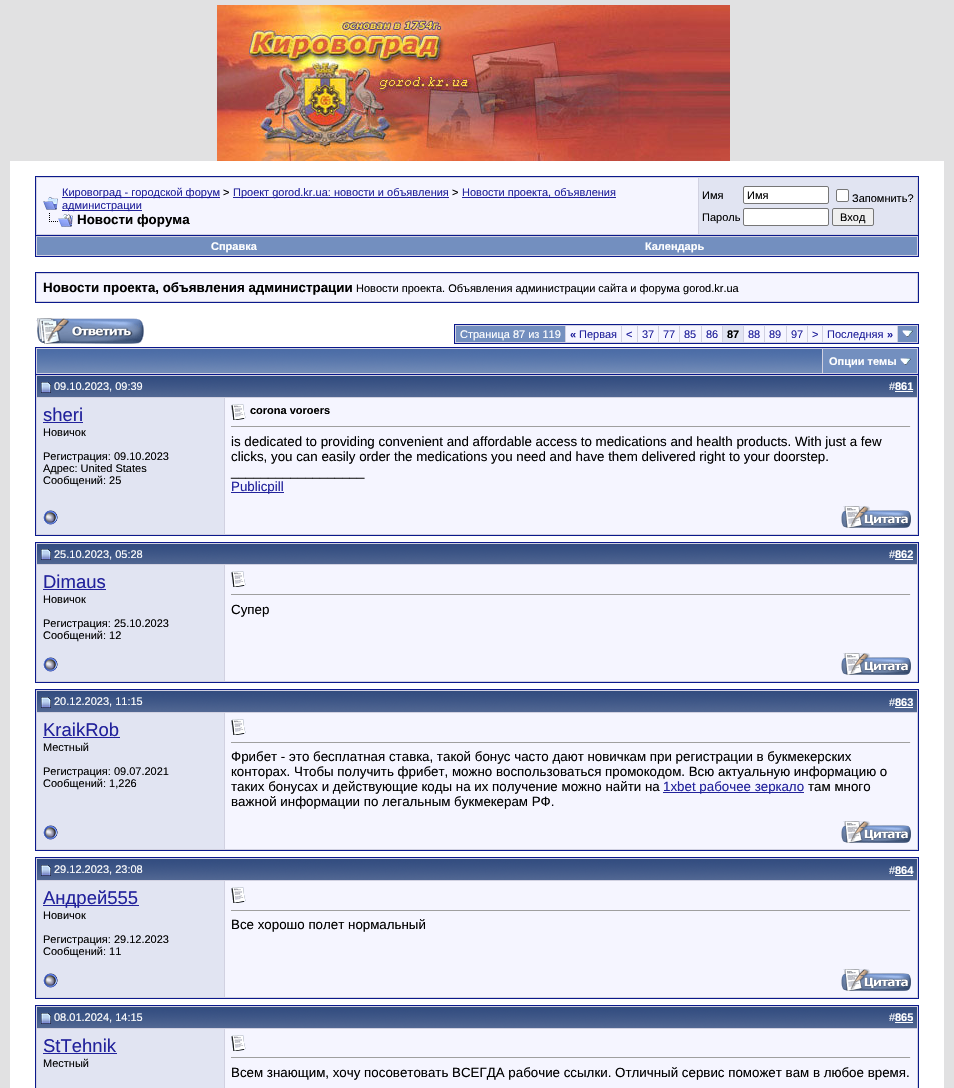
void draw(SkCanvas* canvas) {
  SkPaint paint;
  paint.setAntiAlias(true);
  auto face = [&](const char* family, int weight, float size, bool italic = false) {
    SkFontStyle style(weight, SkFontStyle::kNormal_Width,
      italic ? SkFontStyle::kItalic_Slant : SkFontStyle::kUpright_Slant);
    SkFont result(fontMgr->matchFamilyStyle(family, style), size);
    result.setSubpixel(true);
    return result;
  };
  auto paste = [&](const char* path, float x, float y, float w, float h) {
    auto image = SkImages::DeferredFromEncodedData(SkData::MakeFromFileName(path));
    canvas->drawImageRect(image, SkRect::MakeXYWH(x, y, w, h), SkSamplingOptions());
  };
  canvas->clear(0xffe1e1e2);
  paste("img/1.png", 217, 5, 513, 156);
  paint.setColor(0xffffffff);
  canvas->drawRect(SkRect::MakeXYWH(10, 161, 934, 927), paint);
  paint.setColor(0xffd1d1e1);
  canvas->drawRect(SkRect::MakeXYWH(35.5f, 176.5f, 883, 59), paint);
  paint.setStroke(true);
  paint.setStrokeWidth(1);
  paint.setColor(0xff0b198c);
  canvas->drawRect(SkRect::MakeXYWH(35.5f, 176.5f, 883, 59), paint);
  paint.setStroke(false);
  paint.setColor(0xfff5f5ff);
  canvas->drawRect(SkRect::MakeXYWH(37, 178, 661, 56), paint);
  paste("img/2.png", 43, 197, 15, 13);
  {
    const struct { float x, y, w, h; SkColor color; } items[] = {
      {62, 197, 158, 1, 0xff22229c},
      {233, 197, 216, 1, 0xff22229c},
      {462, 197, 154, 1, 0xff22229c},
      {62, 210, 80, 1, 0xff22229c},
    };
    for (auto [x, y, w, h, color] : items) {
      paint.setColor(color);
      canvas->drawRect(SkRect::MakeXYWH(x, y, w, h), paint);
    }
  }
  paste("img/3.png", 49, 213, 24, 14);
  paint.setColor(0xffe1e4f2);
  canvas->drawRect(SkRect::MakeXYWH(699, 178, 218, 56), paint);
  paint.setColor(0xffffffff);
  canvas->drawRoundRect(SkRect::MakeXYWH(743.5f, 186.5f, 85, 17), 1.5f, 1.5f, paint);
  paint.setStroke(true);
  paint.setColor(0xff767676);
  canvas->drawRoundRect(SkRect::MakeXYWH(743.5f, 186.5f, 85, 17), 1.5f, 1.5f, paint);
  paint.setStroke(false);
  paint.setColor(0xffffffff);
  canvas->drawRoundRect(SkRect::MakeXYWH(836.5f, 189.5f, 12, 12), 1.5f, 1.5f, paint);
  paint.setStroke(true);
  paint.setColor(0xff767676);
  canvas->drawRoundRect(SkRect::MakeXYWH(836.5f, 189.5f, 12, 12), 1.5f, 1.5f, paint);
  paint.setStroke(false);
  paint.setColor(0xffffffff);
  canvas->drawRoundRect(SkRect::MakeXYWH(743.5f, 208.5f, 85, 17), 1.5f, 1.5f, paint);
  paint.setStroke(true);
  paint.setColor(0xff767676);
  canvas->drawRoundRect(SkRect::MakeXYWH(743.5f, 208.5f, 85, 17), 1.5f, 1.5f, paint);
  paint.setStroke(false);
  paint.setColor(0xffefefef);
  canvas->drawRoundRect(SkRect::MakeXYWH(832.5f, 208.5f, 41, 17), 1.5f, 1.5f, paint);
  paint.setStroke(true);
  paint.setColor(0xff767676);
  canvas->drawRoundRect(SkRect::MakeXYWH(832.5f, 208.5f, 41, 17), 1.5f, 1.5f, paint);
  paint.setStroke(false);
  {
    const struct { float x, y, w, h; SkColor color; } items[] = {
      {36, 236, 882, 20, 0xffd1d1e1},
      {918, 236, 1, 21, 0xff0b198c},
      {35, 256, 884, 1, 0xff0b198c},
      {35, 236, 1, 21, 0xff0b198c},
      {37, 237, 880, 18, 0xff738fbf},
    };
    for (auto [x, y, w, h, color] : items) {
      paint.setColor(color);
      canvas->drawRect(SkRect::MakeXYWH(x, y, w, h), paint);
    }
  }
  paint.setColor(0xffd1d1e1);
  canvas->drawRect(SkRect::MakeXYWH(35.5f, 272.5f, 883, 30), paint);
  paint.setStroke(true);
  paint.setColor(0xff0b198c);
  canvas->drawRect(SkRect::MakeXYWH(35.5f, 272.5f, 883, 30), paint);
  paint.setStroke(false);
  paint.setColor(0xfff5f5ff);
  canvas->drawRect(SkRect::MakeXYWH(37, 274, 880, 27), paint);
  paste("img/4.png", 36, 318, 108, 26);
  paint.setColor(0xffd1d1e1);
  canvas->drawRect(SkRect::MakeXYWH(454.5f, 324.5f, 464, 19), paint);
  paint.setStroke(true);
  paint.setColor(0xff0b198c);
  canvas->drawRect(SkRect::MakeXYWH(454.5f, 324.5f, 464, 19), paint);
  paint.setStroke(false);
  {
    const struct { float x, y, w, h; SkColor color; } items[] = {
      {456, 326, 109, 16, 0xff738fbf},
      {566, 326, 55, 16, 0xfff5f5ff},
      {622, 326, 15, 16, 0xfff5f5ff},
      {638, 326, 20, 16, 0xfff5f5ff},
      {659, 326, 20, 16, 0xfff5f5ff},
      {680, 326, 21, 16, 0xfff5f5ff},
      {702, 326, 20, 16, 0xfff5f5ff},
      {723, 326, 20, 16, 0xffe1e4f2},
      {744, 326, 20, 16, 0xfff5f5ff},
      {765, 326, 21, 16, 0xfff5f5ff},
      {787, 326, 20, 16, 0xfff5f5ff},
      {808, 326, 14, 16, 0xfff5f5ff},
      {823, 326, 74, 16, 0xfff5f5ff},
      {898, 326, 19, 16, 0xff738fbf},
    };
    for (auto [x, y, w, h, color] : items) {
      paint.setColor(color);
      canvas->drawRect(SkRect::MakeXYWH(x, y, w, h), paint);
    }
  }
  paste("img/5.png", 902, 330, 11, 7);
  {
    const struct { float x, y, w, h; SkColor color; } items[] = {
      {36, 348, 882, 26, 0xffd1d1e1},
      {35, 347, 884, 1, 0xff0b198c},
      {918, 347, 1, 27, 0xff0b198c},
      {35, 347, 1, 27, 0xff0b198c},
    };
    for (auto [x, y, w, h, color] : items) {
      paint.setColor(color);
      canvas->drawRect(SkRect::MakeXYWH(x, y, w, h), paint);
    }
  }
  paste("img/6.png", 37, 349, 785, 24);
  paint.setColor(0xff738fbf);
  canvas->drawRect(SkRect::MakeXYWH(823, 349, 94, 24), paint);
  paste("img/5.png", 900, 358, 11, 7);
  paint.setStroke(true);
  paint.setColor(0xff0b198c);
  canvas->drawRect(SkRect::MakeXYWH(35.5f, 374.5f, 883, 161), paint);
  paste("img/7.png", 37, 376, 188, 21);
  paint.setStroke(false);
  {
    const struct { float x, y, w, h; SkColor color; } items[] = {
      {36, 375, 882, 1, 0xffd1d1e1},
      {36, 397, 189, 1, 0xffd1d1e1},
      {36, 375, 1, 125, 0xffd1d1e1},
    };
    for (auto [x, y, w, h, color] : items) {
      paint.setColor(color);
      canvas->drawRect(SkRect::MakeXYWH(x, y, w, h), paint);
    }
  }
  paste("img/8.png", 41, 382, 10, 11);
  paste("img/9.png", 225, 376, 692, 21);
  {
    const struct { float x, y, w, h; SkColor color; } items[] = {
      {917, 375, 1, 160, 0xffd1d1e1},
      {225, 397, 693, 1, 0xffd1d1e1},
      {895, 391, 18, 1, 0xffffffff},
      {37, 398, 187, 136, 0xffe1e4f2},
      {224, 398, 1, 137, 0xffd1d1e1},
      {43, 422, 40, 1, 0xff22229c},
      {225, 398, 692, 136, 0xfff5f5ff},
    };
    for (auto [x, y, w, h, color] : items) {
      paint.setColor(color);
      canvas->drawRect(SkRect::MakeXYWH(x, y, w, h), paint);
    }
  }
  paste("img/10.png", 231, 404, 15, 16);
  {
    const struct { float x, y, w, h; SkColor color; } items[] = {
      {231, 426, 680, 1, 0xff9f9f9f},
      {910, 426, 1, 1, 0xffeeeeee},
      {231, 492, 53, 1, 0xff22229c},
      {36, 534, 882, 1, 0xffd1d1e1},
      {36, 500, 1, 35, 0xffd1d1e1},
    };
    for (auto [x, y, w, h, color] : items) {
      paint.setColor(color);
      canvas->drawRect(SkRect::MakeXYWH(x, y, w, h), paint);
    }
  }
  paste("img/11.png", 43, 510, 15, 15);
  paste("img/12.png", 841, 506, 70, 22);
  paint.setStroke(true);
  paint.setColor(0xff0b198c);
  canvas->drawRect(SkRect::MakeXYWH(35.5f, 542.5f, 883, 140), paint);
  paste("img/13.png", 37, 544, 188, 20);
  paint.setStroke(false);
  {
    const struct { float x, y, w, h; SkColor color; } items[] = {
      {36, 543, 882, 1, 0xffd1d1e1},
      {36, 564, 189, 1, 0xffd1d1e1},
      {36, 543, 1, 104, 0xffd1d1e1},
    };
    for (auto [x, y, w, h, color] : items) {
      paint.setColor(color);
      canvas->drawRect(SkRect::MakeXYWH(x, y, w, h), paint);
    }
  }
  paste("img/14.png", 41, 549, 10, 11);
  paste("img/15.png", 225, 544, 692, 20);
  {
    const struct { float x, y, w, h; SkColor color; } items[] = {
      {917, 543, 1, 139, 0xffd1d1e1},
      {225, 564, 693, 1, 0xffd1d1e1},
      {895, 559, 18, 1, 0xffffffff},
      {37, 565, 187, 116, 0xffe1e4f2},
      {224, 565, 1, 117, 0xffd1d1e1},
      {43, 589, 63, 1, 0xff22229c},
      {225, 565, 692, 116, 0xfff5f5ff},
    };
    for (auto [x, y, w, h, color] : items) {
      paint.setColor(color);
      canvas->drawRect(SkRect::MakeXYWH(x, y, w, h), paint);
    }
  }
  paste("img/10.png", 231, 571, 15, 16);
  {
    const struct { float x, y, w, h; SkColor color; } items[] = {
      {231, 594, 680, 1, 0xff9f9f9f},
      {910, 594, 1, 1, 0xffeeeeee},
      {36, 681, 882, 1, 0xffd1d1e1},
      {36, 647, 1, 35, 0xffd1d1e1},
    };
    for (auto [x, y, w, h, color] : items) {
      paint.setColor(color);
      canvas->drawRect(SkRect::MakeXYWH(x, y, w, h), paint);
    }
  }
  paste("img/11.png", 43, 657, 15, 15);
  paste("img/12.png", 841, 653, 70, 22);
  paint.setStroke(true);
  paint.setColor(0xff0b198c);
  canvas->drawRect(SkRect::MakeXYWH(35.5f, 689.5f, 883, 161), paint);
  paste("img/7.png", 37, 691, 188, 21);
  paint.setStroke(false);
  {
    const struct { float x, y, w, h; SkColor color; } items[] = {
      {36, 690, 882, 1, 0xffd1d1e1},
      {36, 712, 189, 1, 0xffd1d1e1},
      {36, 690, 1, 125, 0xffd1d1e1},
    };
    for (auto [x, y, w, h, color] : items) {
      paint.setColor(color);
      canvas->drawRect(SkRect::MakeXYWH(x, y, w, h), paint);
    }
  }
  paste("img/8.png", 41, 697, 10, 11);
  paste("img/9.png", 225, 691, 692, 21);
  {
    const struct { float x, y, w, h; SkColor color; } items[] = {
      {917, 690, 1, 160, 0xffd1d1e1},
      {225, 712, 693, 1, 0xffd1d1e1},
      {895, 707, 18, 1, 0xffffffff},
      {37, 713, 187, 136, 0xffe1e4f2},
      {224, 713, 1, 137, 0xffd1d1e1},
      {43, 737, 77, 1, 0xff22229c},
      {225, 713, 692, 136, 0xfff5f5ff},
    };
    for (auto [x, y, w, h, color] : items) {
      paint.setColor(color);
      canvas->drawRect(SkRect::MakeXYWH(x, y, w, h), paint);
    }
  }
  paste("img/10.png", 231, 719, 15, 16);
  {
    const struct { float x, y, w, h; SkColor color; } items[] = {
      {231, 742, 680, 1, 0xff9f9f9f},
      {910, 742, 1, 1, 0xffeeeeee},
      {663, 792, 141, 1, 0xff22229c},
      {36, 849, 882, 1, 0xffd1d1e1},
      {36, 815, 1, 35, 0xffd1d1e1},
    };
    for (auto [x, y, w, h, color] : items) {
      paint.setColor(color);
      canvas->drawRect(SkRect::MakeXYWH(x, y, w, h), paint);
    }
  }
  paste("img/11.png", 43, 825, 15, 15);
  paste("img/12.png", 841, 821, 70, 22);
  paint.setStroke(true);
  paint.setColor(0xff0b198c);
  canvas->drawRect(SkRect::MakeXYWH(35.5f, 857.5f, 883, 141), paint);
  paste("img/7.png", 37, 859, 188, 21);
  paint.setStroke(false);
  {
    const struct { float x, y, w, h; SkColor color; } items[] = {
      {36, 858, 882, 1, 0xffd1d1e1},
      {36, 880, 189, 1, 0xffd1d1e1},
      {36, 858, 1, 105, 0xffd1d1e1},
    };
    for (auto [x, y, w, h, color] : items) {
      paint.setColor(color);
      canvas->drawRect(SkRect::MakeXYWH(x, y, w, h), paint);
    }
  }
  paste("img/8.png", 41, 865, 10, 11);
  paste("img/9.png", 225, 859, 692, 21);
  {
    const struct { float x, y, w, h; SkColor color; } items[] = {
      {917, 858, 1, 140, 0xffd1d1e1},
      {225, 880, 693, 1, 0xffd1d1e1},
      {895, 875, 18, 1, 0xffffffff},
      {37, 881, 187, 116, 0xffe1e4f2},
      {224, 881, 1, 117, 0xffd1d1e1},
      {43, 905, 96, 1, 0xff22229c},
      {225, 881, 692, 116, 0xfff5f5ff},
    };
    for (auto [x, y, w, h, color] : items) {
      paint.setColor(color);
      canvas->drawRect(SkRect::MakeXYWH(x, y, w, h), paint);
    }
  }
  paste("img/10.png", 231, 887, 15, 16);
  {
    const struct { float x, y, w, h; SkColor color; } items[] = {
      {231, 910, 680, 1, 0xff9f9f9f},
      {910, 910, 1, 1, 0xffeeeeee},
      {36, 997, 882, 1, 0xffd1d1e1},
      {36, 963, 1, 35, 0xffd1d1e1},
    };
    for (auto [x, y, w, h, color] : items) {
      paint.setColor(color);
      canvas->drawRect(SkRect::MakeXYWH(x, y, w, h), paint);
    }
  }
  paste("img/11.png", 43, 973, 15, 15);
  paste("img/12.png", 841, 969, 70, 22);
  paint.setStroke(true);
  paint.setColor(0xff0b198c);
  canvas->drawRect(SkRect::MakeXYWH(35.5f, 1005.5f, 883, 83), paint);
  paste("img/7.png", 37, 1007, 188, 21);
  paint.setStroke(false);
  {
    const struct { float x, y, w, h; SkColor color; } items[] = {
      {36, 1006, 882, 1, 0xffd1d1e1},
      {36, 1028, 189, 1, 0xffd1d1e1},
      {36, 1006, 1, 82, 0xffd1d1e1},
    };
    for (auto [x, y, w, h, color] : items) {
      paint.setColor(color);
      canvas->drawRect(SkRect::MakeXYWH(x, y, w, h), paint);
    }
  }
  paste("img/8.png", 41, 1013, 10, 11);
  paste("img/9.png", 225, 1007, 692, 21);
  {
    const struct { float x, y, w, h; SkColor color; } items[] = {
      {917, 1006, 1, 82, 0xffd1d1e1},
      {225, 1028, 693, 1, 0xffd1d1e1},
      {895, 1022, 18, 1, 0xffffffff},
      {37, 1029, 187, 59, 0xffe1e4f2},
      {224, 1029, 1, 59, 0xffd1d1e1},
      {43, 1053, 74, 1, 0xff22229c},
      {225, 1029, 692, 59, 0xfff5f5ff},
    };
    for (auto [x, y, w, h, color] : items) {
      paint.setColor(color);
      canvas->drawRect(SkRect::MakeXYWH(x, y, w, h), paint);
    }
  }
  paste("img/10.png", 231, 1035, 15, 16);
  paint.setColor(0xff9f9f9f);
  canvas->drawRect(SkRect::MakeXYWH(231, 1057, 680, 1), paint);
  paint.setColor(0xffeeeeee);
  canvas->drawRect(SkRect::MakeXYWH(910, 1057, 1, 1), paint);
  auto f0 = face("Liberation Sans", 400, 11);
  paint.setColor(0xff22229c);
  canvas->drawString("Кировоград - городской форум", 62, 196, f0, paint);
  paint.setColor(0xff000000);
  canvas->drawString(">", 223, 196, f0, paint);
  paint.setColor(0xff22229c);
  canvas->drawString("Проект gorod.kr.ua: новости и объявления", 233, 196, f0, paint);
  paint.setColor(0xff000000);
  canvas->drawString(">", 452, 196, f0, paint);
  paint.setColor(0xff22229c);
  canvas->drawString("Новости проекта, объявления", 462, 196, f0, paint);
  canvas->drawString("администрации", 62, 209, f0, paint);
  auto f1 = face("Liberation Sans", 700, 13.33f);
  paint.setColor(0xff000000);
  canvas->drawString("Новости форума", 77, 224, f1, paint);
  {
    const struct { const char* s; float x, y; } items[] = {
      {"Имя", 702, 199},
      {"Имя", 747, 199},
      {"Запомнить?", 852, 202},
      {"Пароль", 702, 221},
      {"Вход", 840, 221},
    };
    for (auto [s, x, y] : items) {
      canvas->drawString(s, x, y, f0, paint);
    }
  }
  auto f2 = face("Liberation Sans", 700, 11);
  paint.setColor(0xffffffff);
  canvas->drawString("Справка", 211, 250, f2, paint);
  canvas->drawString("Календарь", 645, 250, f2, paint);
  paint.setColor(0xff000000);
  canvas->drawString("Новости проекта, объявления администрации", 43, 292, f1, paint);
  canvas->drawString("Новости проекта. Объявления администрации сайта и форума gorod.kr.ua", 356, 292, f0, paint);
  paint.setColor(0xffffffff);
  canvas->drawString("Страница 87 из 119", 460, 338, f0, paint);
  paint.setColor(0xff22229c);
  canvas->drawString("«", 570, 338, f2, paint);
  {
    const struct { const char* s; float x, y; } items[] = {
      {"Первая", 579, 338},
      {"<", 626, 338},
      {"37", 642, 338},
      {"77", 663, 338},
      {"85", 684, 338},
      {"86", 706, 338},
    };
    for (auto [s, x, y] : items) {
      canvas->drawString(s, x, y, f0, paint);
    }
  }
  paint.setColor(0xff000000);
  canvas->drawString("87", 727, 338, f2, paint);
  paint.setColor(0xff22229c);
  {
    const struct { const char* s; float x, y; } items[] = {
      {"88", 748, 338},
      {"89", 769, 338},
      {"97", 791, 338},
      {">", 812, 338},
      {"Последняя", 827, 338},
    };
    for (auto [s, x, y] : items) {
      canvas->drawString(s, x, y, f0, paint);
    }
  }
  canvas->drawString("»", 887, 338, f2, paint);
  paint.setColor(0xffffffff);
  canvas->drawString("Опции темы", 829, 365, f2, paint);
  canvas->drawString("09.10.2023, 09:39", 54, 390, f0, paint);
  canvas->drawString("#", 889, 390, f0, paint);
  canvas->drawString("861", 895, 390, f2, paint);
  auto f3 = face("Liberation Sans", 400, 18.5f);
  paint.setColor(0xff22229c);
  canvas->drawString("sheri", 43, 421, f3, paint);
  paint.setColor(0xff000000);
  {
    const struct { const char* s; float x, y; } items[] = {
      {"Новичок", 43, 436},
      {"Регистрация: 09.10.2023", 43, 460},
      {"Адрес: United States", 43, 472},
      {"Сообщений: 25", 43, 484},
    };
    for (auto [s, x, y] : items) {
      canvas->drawString(s, x, y, f0, paint);
    }
  }
  canvas->drawString("corona voroers", 250, 414, f2, paint);
  auto f4 = face("Liberation Sans", 400, 13.33f);
  {
    const struct { const char* s; float x, y; } items[] = {
      {"is dedicated to providing convenient and affordable access to medications and health products. With just a few", 231, 446},
      {"clicks, you can easily order the medications you need and have them delivered right to your doorstep.", 231, 461},
      {"__________________", 231, 476},
    };
    for (auto [s, x, y] : items) {
      canvas->drawString(s, x, y, f4, paint);
    }
  }
  paint.setColor(0xff22229c);
  canvas->drawString("Publicpill", 231, 491, f4, paint);
  paint.setColor(0xffffffff);
  canvas->drawString("25.10.2023, 05:28", 54, 558, f0, paint);
  canvas->drawString("#", 889, 558, f0, paint);
  canvas->drawString("862", 895, 558, f2, paint);
  paint.setColor(0xff22229c);
  canvas->drawString("Dimaus", 43, 588, f3, paint);
  paint.setColor(0xff000000);
  {
    const struct { const char* s; float x, y; } items[] = {
      {"Новичок", 43, 603},
      {"Регистрация: 25.10.2023", 43, 627},
      {"Сообщений: 12", 43, 639},
    };
    for (auto [s, x, y] : items) {
      canvas->drawString(s, x, y, f0, paint);
    }
  }
  canvas->drawString("Супер", 231, 614, f4, paint);
  paint.setColor(0xffffffff);
  canvas->drawString("20.12.2023, 11:15", 54, 705, f0, paint);
  canvas->drawString("#", 889, 706, f0, paint);
  canvas->drawString("863", 895, 706, f2, paint);
  paint.setColor(0xff22229c);
  canvas->drawString("KraikRob", 43, 736, f3, paint);
  paint.setColor(0xff000000);
  {
    const struct { const char* s; float x, y; } items[] = {
      {"Местный", 43, 751},
      {"Регистрация: 09.07.2021", 43, 775},
      {"Сообщений: 1,226", 43, 787},
    };
    for (auto [s, x, y] : items) {
      canvas->drawString(s, x, y, f0, paint);
    }
  }
  {
    const struct { const char* s; float x, y; } items[] = {
      {"Фрибет - это бесплатная ставка, такой бонус часто дают новичкам при регистрации в букмекерских", 231, 761},
      {"конторах. Чтобы получить фрибет, можно воспользоваться промокодом. Всю актуальную информацию о", 231, 776},
      {"таких бонусах и действующие коды на их получение можно найти на", 231, 791},
    };
    for (auto [s, x, y] : items) {
      canvas->drawString(s, x, y, f4, paint);
    }
  }
  paint.setColor(0xff22229c);
  canvas->drawString("1xbet рабочее зеркало", 663, 791, f4, paint);
  paint.setColor(0xff000000);
  canvas->drawString("там много", 808, 791, f4, paint);
  canvas->drawString("важной информации по легальным букмекерам РФ.", 231, 806, f4, paint);
  paint.setColor(0xffffffff);
  canvas->drawString("29.12.2023, 23:08", 54, 873, f0, paint);
  canvas->drawString("#", 889, 874, f0, paint);
  canvas->drawString("864", 895, 874, f2, paint);
  paint.setColor(0xff22229c);
  canvas->drawString("Андрей555", 43, 904, f3, paint);
  paint.setColor(0xff000000);
  {
    const struct { const char* s; float x, y; } items[] = {
      {"Новичок", 43, 919},
      {"Регистрация: 29.12.2023", 43, 943},
      {"Сообщений: 11", 43, 955},
    };
    for (auto [s, x, y] : items) {
      canvas->drawString(s, x, y, f0, paint);
    }
  }
  canvas->drawString("Все хорошо полет нормальный", 231, 929, f4, paint);
  paint.setColor(0xffffffff);
  canvas->drawString("08.01.2024, 14:15", 54, 1021, f0, paint);
  canvas->drawString("#", 889, 1021, f0, paint);
  canvas->drawString("865", 895, 1021, f2, paint);
  paint.setColor(0xff22229c);
  canvas->drawString("StTehnik", 43, 1052, f3, paint);
  paint.setColor(0xff000000);
  canvas->drawString("Местный", 43, 1067, f0, paint);
  canvas->drawString("Всем знающим, хочу посоветовать ВСЕГДА рабочие ссылки. Отличный сервис поможет вам в любое время.", 231, 1077, f4, paint);
}
